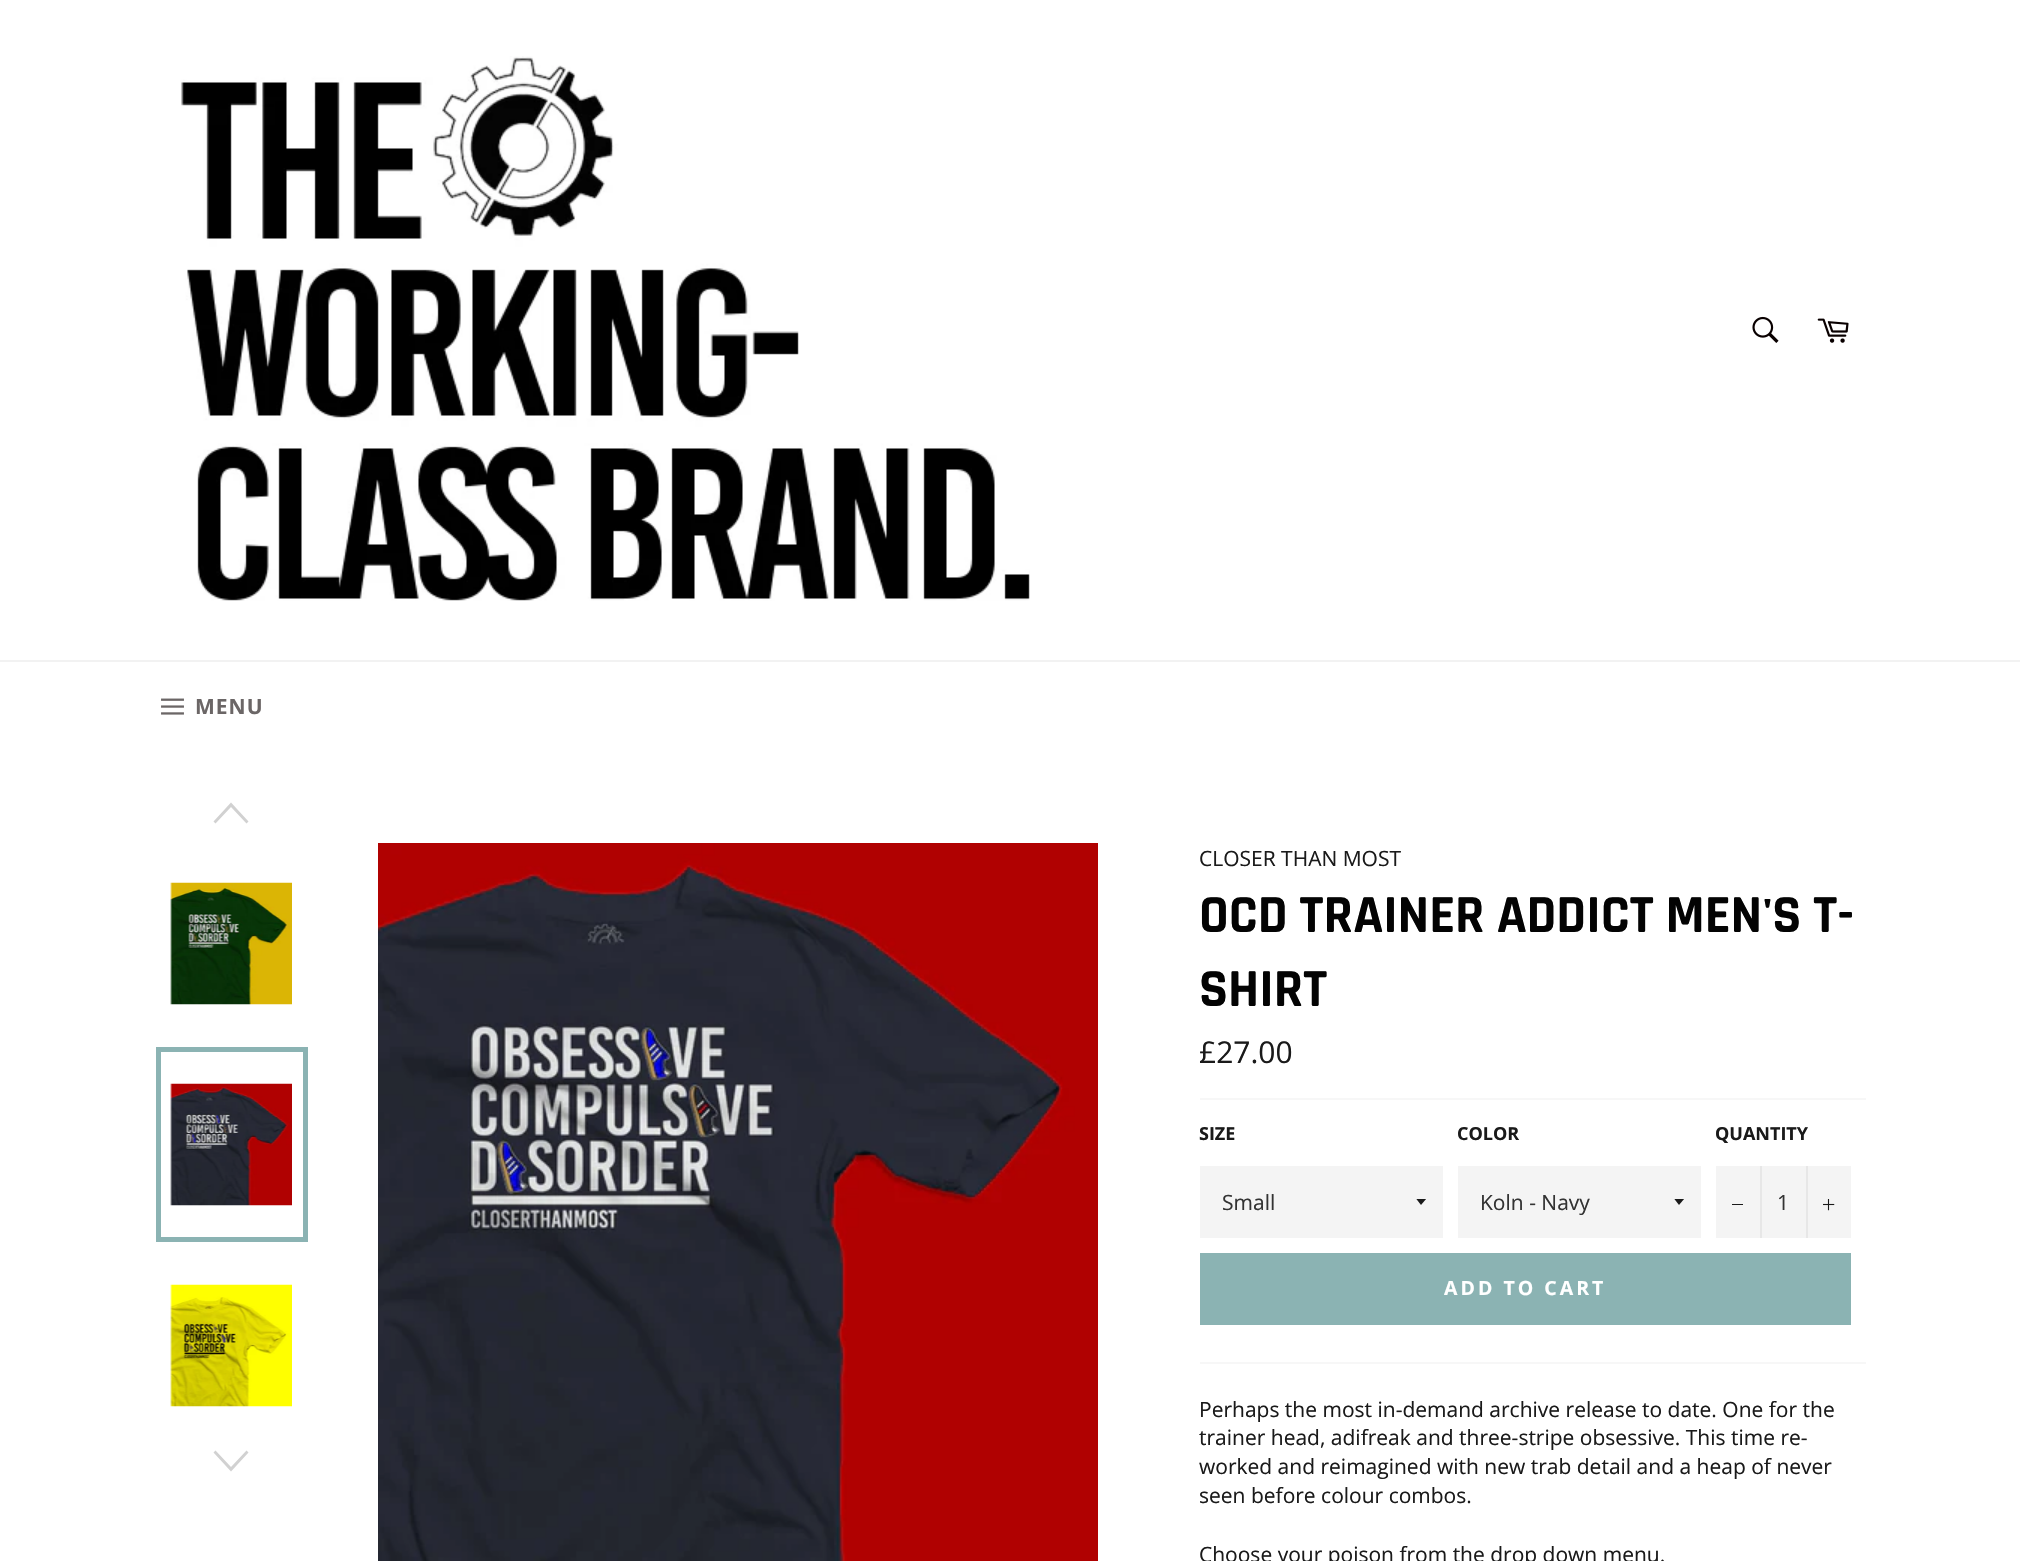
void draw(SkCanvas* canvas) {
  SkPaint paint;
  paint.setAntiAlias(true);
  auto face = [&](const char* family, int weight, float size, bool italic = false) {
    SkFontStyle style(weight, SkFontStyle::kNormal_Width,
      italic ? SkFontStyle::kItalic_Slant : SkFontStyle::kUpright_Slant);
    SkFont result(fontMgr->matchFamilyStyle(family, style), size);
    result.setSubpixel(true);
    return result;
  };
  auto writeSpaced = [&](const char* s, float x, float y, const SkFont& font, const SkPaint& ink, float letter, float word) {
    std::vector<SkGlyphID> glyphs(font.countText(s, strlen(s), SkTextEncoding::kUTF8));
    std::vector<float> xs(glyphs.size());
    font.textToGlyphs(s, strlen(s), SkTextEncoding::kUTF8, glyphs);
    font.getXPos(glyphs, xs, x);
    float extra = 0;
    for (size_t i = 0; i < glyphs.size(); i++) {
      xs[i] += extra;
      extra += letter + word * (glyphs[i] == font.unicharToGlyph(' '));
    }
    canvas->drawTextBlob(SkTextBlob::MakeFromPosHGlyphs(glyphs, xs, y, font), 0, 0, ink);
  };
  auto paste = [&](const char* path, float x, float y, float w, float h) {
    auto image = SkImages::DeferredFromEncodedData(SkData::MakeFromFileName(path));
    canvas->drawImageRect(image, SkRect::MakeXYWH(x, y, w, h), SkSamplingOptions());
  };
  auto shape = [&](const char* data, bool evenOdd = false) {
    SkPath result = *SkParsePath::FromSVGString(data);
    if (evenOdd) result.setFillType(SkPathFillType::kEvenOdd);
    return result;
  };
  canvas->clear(0xffffffff);
  paste("img/1.png", 181, 56, 849, 545);
  paste("img/2.png", 1752, 316, 27, 27);
  paste("img/3.png", 1817, 318, 32, 25);
  paint.setColor(0xfff2f2f2);
  canvas->drawRect(SkRect::MakeXYWH(0, 660, 2020, 2), paint);
  paste("img/4.png", 161, 698, 23, 17);
  paint.setColor(0xffd1d1d1);
  canvas->drawPath(shape("M246.5 823.5L248.5 821.5L231 802.5L213.5 821.5L215.5 823.5L231 807Z"), paint);
  paste("img/5.png", 170, 882, 122, 123);
  paste("img/6.png", 170, 1083, 122, 123);
  paint.setStroke(true);
  paint.setStrokeWidth(5);
  paint.setColor(0xff8bb3b3);
  canvas->drawRect(SkRect::MakeXYWH(158.5f, 1049.5f, 147, 190), paint);
  paste("img/7.png", 170, 1284, 122, 123);
  paint.setStroke(false);
  paint.setColor(0xffd1d1d1);
  canvas->drawPath(shape("M246.5 1450.5L248.5 1452.5L231 1471.5L213.5 1452.5L215.5 1450.5L231 1467Z"), paint);
  paste("img/8.png", 378, 843, 720, 718);
  paint.setColor(0xfff7f7f7);
  canvas->drawRect(SkRect::MakeXYWH(1200, 1098, 666, 2), paint);
  paint.setColor(0xfff4f4f4);
  canvas->drawRect(SkRect::MakeXYWH(1200, 1166, 243, 72), paint);
  canvas->save();
  canvas->clipRect(SkRect::MakeXYWH(1416, 1199, 12, 7));
  paint.setColor(0xff1a1a1a);
  canvas->drawPath(shape("M1416 1198.5L1421 1205L1426.5 1198.5Z"), paint);
  canvas->restore();
  paint.setColor(0xfff4f4f4);
  canvas->drawRect(SkRect::MakeXYWH(1458, 1166, 243, 72), paint);
  canvas->save();
  canvas->clipRect(SkRect::MakeXYWH(1674, 1199, 12, 7));
  paint.setColor(0xff1a1a1a);
  canvas->drawPath(shape("M1674 1198.5L1679 1205L1684.5 1198.5Z"), paint);
  canvas->restore();
  {
    const struct { float x, y, w, h; SkColor color; } items[] = {
      {1716, 1166, 135, 72, 0xfff4f4f4},
      {1760, 1166, 2, 72, 0xffe7e7e7},
      {1732, 1204, 11, 1, 0xff1a1a1a},
      {1806, 1166, 2, 72, 0xffe7e7e7},
    };
    for (auto [x, y, w, h, color] : items) {
      paint.setColor(color);
      canvas->drawRect(SkRect::MakeXYWH(x, y, w, h), paint);
    }
  }
  paste("img/9.png", 1823, 1199, 12, 12);
  paint.setColor(0xff8bb3b3);
  canvas->drawRect(SkRect::MakeXYWH(1200, 1253, 651, 72), paint);
  paint.setColor(0xfff7f7f7);
  canvas->drawRect(SkRect::MakeXYWH(1200, 1362, 666, 2), paint);
  auto f0 = face("Open Sans", 700, 21);
  paint.setColor(0xff6b6666);
  writeSpaced("MENU", 195, 714, f0, paint, 1, 0);
  auto f1 = face("Open Sans", 400, 21);
  paint.setColor(0xff1a1a1a);
  canvas->drawString("CLOSER THAN MOST", 1199, 866, f1, paint);
  auto f2 = face("Rajdhani", 700, 54);
  paint.setColor(0xff030303);
  canvas->drawString("OCD TRAINER ADDICT MEN'S T-", 1199, 932, f2, paint);
  canvas->drawString("SHIRT", 1199, 1006, f2, paint);
  auto f3 = face("Open Sans", 400, 30);
  paint.setColor(0xff1a1a1a);
  canvas->drawString("£27.00", 1199, 1063, f3, paint);
  auto f4 = face("Open Sans", 700, 18);
  canvas->drawString("SIZE", 1199, 1140, f4, paint);
  paint.setColor(0xff333333);
  canvas->drawString("Small", 1222, 1210, f1, paint);
  paint.setColor(0xff1a1a1a);
  canvas->drawString("COLOR", 1457, 1140, f4, paint);
  paint.setColor(0xff333333);
  canvas->drawString("Koln - Navy", 1480, 1210, f1, paint);
  paint.setColor(0xff1a1a1a);
  canvas->drawString("QUANTITY", 1715, 1140, f4, paint);
  paint.setColor(0xff333333);
  canvas->drawString("1", 1777, 1210, f1, paint);
  auto f5 = face("Open Sans", 700, 19.5f);
  paint.setColor(0xffffffff);
  writeSpaced("ADD TO CART", 1444, 1295, f5, paint, 3, 0);
  paint.setColor(0xff1a1a1a);
  {
    const struct { const char* s; float x, y; } items[] = {
      {"Perhaps the most in-demand archive release to date. One for the", 1199, 1417},
      {"trainer head, adifreak and three-stripe obsessive. This time re-", 1199, 1445},
      {"worked and reimagined with new trab detail and a heap of never", 1199, 1474},
      {"seen before colour combos.", 1199, 1503},
      {"Choose your poison from the drop down menu.", 1199, 1562},
    };
    for (auto [s, x, y] : items) {
      canvas->drawString(s, x, y, f1, paint);
    }
  }
}
